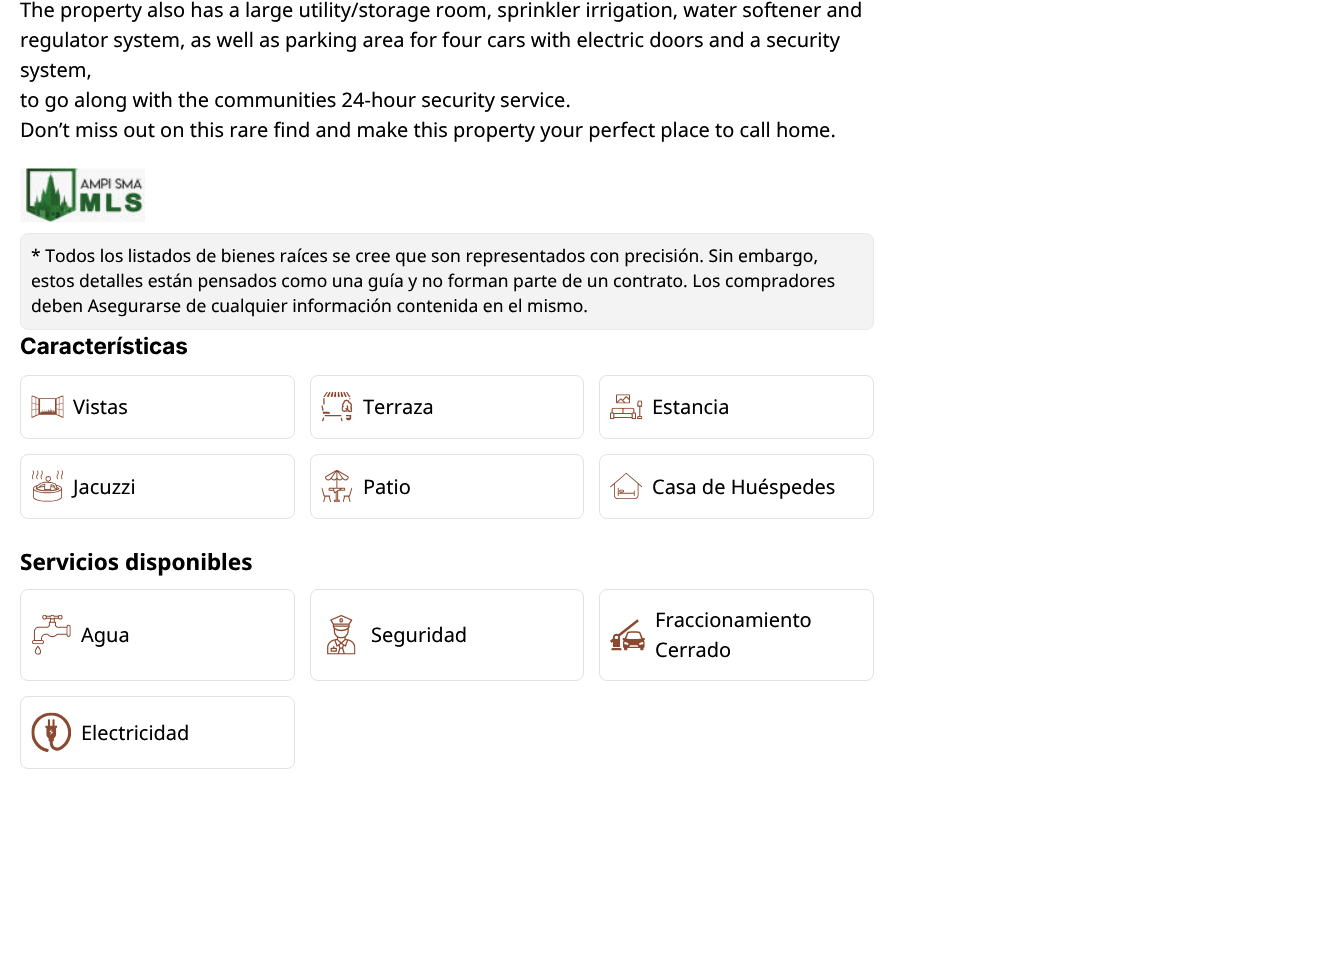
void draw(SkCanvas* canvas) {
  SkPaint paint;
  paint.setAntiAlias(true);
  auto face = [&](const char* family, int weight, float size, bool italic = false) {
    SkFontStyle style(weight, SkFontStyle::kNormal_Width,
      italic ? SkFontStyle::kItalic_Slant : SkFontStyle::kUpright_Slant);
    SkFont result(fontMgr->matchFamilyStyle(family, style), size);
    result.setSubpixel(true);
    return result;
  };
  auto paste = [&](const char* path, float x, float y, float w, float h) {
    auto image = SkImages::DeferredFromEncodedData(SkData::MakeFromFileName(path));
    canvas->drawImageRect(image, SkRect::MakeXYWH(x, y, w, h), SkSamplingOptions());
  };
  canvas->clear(0xffffffff);
  paste("img/1.png", 20, 168, 125, 55);
  paint.setColor(0xfff3f3f3);
  canvas->drawRoundRect(SkRect::MakeXYWH(20.5f, 233.5f, 853, 96), 7.5f, 7.5f, paint);
  paint.setStroke(true);
  paint.setStrokeWidth(1);
  paint.setColor(0xffe8e8e8);
  canvas->drawRoundRect(SkRect::MakeXYWH(20.5f, 233.5f, 853, 96), 7.5f, 7.5f, paint);
  paint.setColor(0xffe2e2e2);
  canvas->drawRoundRect(SkRect::MakeXYWH(20.5f, 375.5f, 274, 63), 7.5f, 7.5f, paint);
  paste("img/2.png", 31, 395, 33, 23);
  canvas->drawRoundRect(SkRect::MakeXYWH(310.5f, 375.5f, 273, 63), 7.5f, 7.5f, paint);
  paste("img/3.png", 321, 391, 32, 31);
  canvas->drawRoundRect(SkRect::MakeXYWH(599.5f, 375.5f, 274, 63), 7.5f, 7.5f, paint);
  paste("img/4.png", 610, 394, 33, 26);
  canvas->drawRoundRect(SkRect::MakeXYWH(20.5f, 454.5f, 274, 64), 7.5f, 7.5f, paint);
  paste("img/5.png", 32, 470, 31, 32);
  canvas->drawRoundRect(SkRect::MakeXYWH(310.5f, 454.5f, 273, 64), 7.5f, 7.5f, paint);
  paste("img/6.png", 321, 470, 32, 32);
  canvas->drawRoundRect(SkRect::MakeXYWH(599.5f, 454.5f, 274, 64), 7.5f, 7.5f, paint);
  paste("img/7.png", 610, 472, 33, 27);
  canvas->drawRoundRect(SkRect::MakeXYWH(20.5f, 589.5f, 274, 91), 7.5f, 7.5f, paint);
  paste("img/8.png", 32, 615, 39, 40);
  canvas->drawRoundRect(SkRect::MakeXYWH(310.5f, 589.5f, 273, 91), 7.5f, 7.5f, paint);
  paste("img/9.png", 327, 615, 29, 40);
  canvas->drawRoundRect(SkRect::MakeXYWH(599.5f, 589.5f, 274, 91), 7.5f, 7.5f, paint);
  paste("img/10.png", 610, 619, 35, 32);
  canvas->drawRoundRect(SkRect::MakeXYWH(20.5f, 696.5f, 274, 72), 7.5f, 7.5f, paint);
  paste("img/11.png", 31, 712, 40, 40);
  auto f0 = face("Noto Sans", 400, 20);
  paint.setStroke(false);
  paint.setColor(0xff000000);
  {
    const struct { const char* s; float x, y; } items[] = {
      {"The property also has a large utility/storage room, sprinkler irrigation, water softener and", 20, 17},
      {"regulator system, as well as parking area for four cars with electric doors and a security", 20, 47},
      {"system,", 20, 77},
      {"to go along with the communities 24-hour security service.", 20, 107},
      {"Don’t miss out on this rare find and make this property your perfect place to call home.", 20, 137},
    };
    for (auto [s, x, y] : items) {
      canvas->drawString(s, x, y, f0, paint);
    }
  }
  auto f1 = face("Noto Sans", 400, 17.5f);
  {
    const struct { const char* s; float x, y; } items[] = {
      {"* Todos los listados de bienes raíces se cree que son representados con precisión. Sin embargo,", 31, 262},
      {"estos detalles están pensados como una guía y no forman parte de un contrato. Los compradores", 31, 287},
      {"deben Asegurarse de cualquier información contenida en el mismo.", 31, 312},
    };
    for (auto [s, x, y] : items) {
      canvas->drawString(s, x, y, f1, paint);
    }
  }
  auto f2 = face("Inter", 700, 22.5f);
  canvas->drawString("Características", 20, 354, f2, paint);
  {
    const struct { const char* s; float x, y; } items[] = {
      {"Vistas", 73, 414},
      {"Terraza", 363, 414},
      {"Estancia", 652, 414},
      {"Jacuzzi", 73, 494},
      {"Patio", 363, 494},
      {"Casa de Huéspedes", 652, 494},
    };
    for (auto [s, x, y] : items) {
      canvas->drawString(s, x, y, f0, paint);
    }
  }
  auto f3 = face("Noto Sans", 700, 22.5f);
  canvas->drawString("Servicios disponibles", 20, 570, f3, paint);
  {
    const struct { const char* s; float x, y; } items[] = {
      {"Agua", 81, 642},
      {"Seguridad", 371, 642},
      {"Fraccionamiento", 655, 627},
      {"Cerrado", 655, 657},
      {"Electricidad", 81, 740},
    };
    for (auto [s, x, y] : items) {
      canvas->drawString(s, x, y, f0, paint);
    }
  }
}
